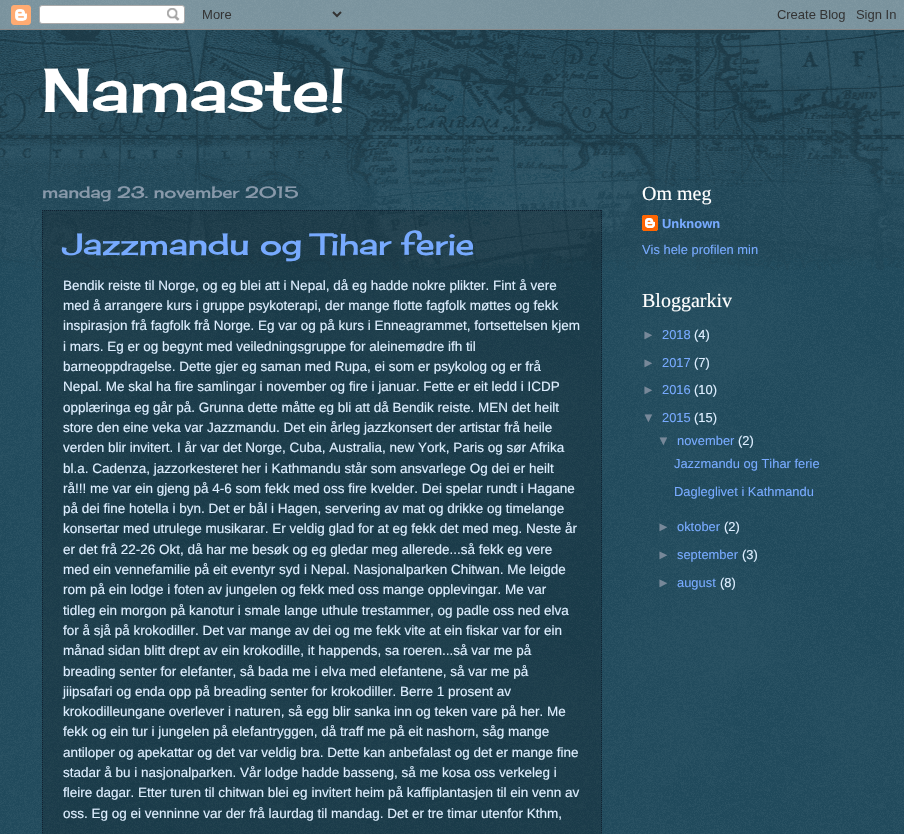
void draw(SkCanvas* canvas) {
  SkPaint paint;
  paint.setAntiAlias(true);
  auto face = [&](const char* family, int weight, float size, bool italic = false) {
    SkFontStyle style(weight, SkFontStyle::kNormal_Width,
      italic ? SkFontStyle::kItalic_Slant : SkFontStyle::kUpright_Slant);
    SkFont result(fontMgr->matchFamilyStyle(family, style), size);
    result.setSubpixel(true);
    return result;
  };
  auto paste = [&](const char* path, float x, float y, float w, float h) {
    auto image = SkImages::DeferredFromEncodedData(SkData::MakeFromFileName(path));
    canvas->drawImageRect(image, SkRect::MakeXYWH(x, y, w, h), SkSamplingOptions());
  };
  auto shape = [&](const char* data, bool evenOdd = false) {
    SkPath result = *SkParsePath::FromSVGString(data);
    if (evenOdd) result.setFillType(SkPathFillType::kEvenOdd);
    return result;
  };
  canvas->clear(0xff002f44);
  paste("img/1.png", 0, 0, 904, 834);
  paste("img/2.png", 0, 0, 904, 30);
  paste("img/3.png", 0, 30, 904, 240);
  paint.setColor(0x33000000);
  canvas->drawRect(SkRect::MakeXYWH(42, 210, 560, 624), paint);
  paint.setStroke(true);
  paint.setStrokeWidth(1);
  paint.setColor(0xff112233);
  paint.setPathEffect(SkDashPathEffect::Make({{1, 1}}, 0));
  canvas->drawPath(shape("M42 210.5H602"), paint);
  paint.setPathEffect(nullptr);
  paint.setPathEffect(SkDashPathEffect::Make({{1, 1}}, 0));
  canvas->drawPath(shape("M601.5 210V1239"), paint);
  paint.setPathEffect(nullptr);
  paint.setPathEffect(SkDashPathEffect::Make({{1, 1}}, 0));
  canvas->drawPath(shape("M42.5 210V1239"), paint);
  paint.setPathEffect(nullptr);
  paste("img/4.png", 642, 215, 16, 16);
  auto f0 = face("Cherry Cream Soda", 400, 60);
  paint.setStroke(false);
  paint.setColor(0xffffffff);
  canvas->drawString("Namaste!", 42, 112, f0, paint);
  auto f1 = face("Cherry Cream Soda", 400, 16);
  paint.setColor(0xff8899aa);
  canvas->drawString("mandag 23. november 2015", 42, 198, f1, paint);
  auto f2 = face("Cherry Cream Soda", 400, 30);
  paint.setColor(0xff77aaff);
  canvas->drawString("Jazzmandu og Tihar ferie", 63, 255, f2, paint);
  auto f3 = face("Liberation Sans", 400, 13.5f);
  paint.setColor(0xffddeeff);
  {
    const struct { const char* s; float x, y; } items[] = {
      {"Bendik reiste til Norge, og eg blei att i Nepal, då eg hadde nokre plikter. Fint å vere", 63, 290},
      {"med å arrangere kurs i gruppe psykoterapi, der mange flotte fagfolk møttes og fekk", 63, 310},
      {"inspirasjon frå fagfolk frå Norge. Eg var og på kurs i Enneagrammet, fortsettelsen kjem", 63, 330},
      {"i mars. Eg er og begynt med veiledningsgruppe for aleinemødre ifh til", 63, 351},
      {"barneoppdragelse. Dette gjer eg saman med Rupa, ei som er psykolog og er frå", 63, 371},
      {"Nepal. Me skal ha fire samlingar i november og fire i januar. Fette er eit ledd i ICDP", 63, 391},
      {"opplæringa eg går på. Grunna dette måtte eg bli att då Bendik reiste. MEN det heilt", 63, 412},
      {"store den eine veka var Jazzmandu. Det ein årleg jazzkonsert der artistar frå heile", 63, 432},
      {"verden blir invitert. I år var det Norge, Cuba, Australia, new York, Paris og sør Afrika", 63, 452},
      {"bl.a. Cadenza, jazzorkesteret her i Kathmandu står som ansvarlege Og dei er heilt", 63, 473},
      {"rå!!! me var ein gjeng på 4-6 som fekk med oss fire kvelder. Dei spelar rundt i Hagane", 63, 493},
      {"på dei fine hotella i byn. Det er bål i Hagen, servering av mat og drikke og timelange", 63, 513},
      {"konsertar med utrulege musikarar. Er veldig glad for at eg fekk det med meg. Neste år", 63, 533},
      {"er det frå 22-26 Okt, då har me besøk og eg gledar meg allerede...så fekk eg vere", 63, 554},
      {"med ein vennefamilie på eit eventyr syd i Nepal. Nasjonalparken Chitwan. Me leigde", 63, 574},
      {"rom på ein lodge i foten av jungelen og fekk med oss mange opplevingar. Me var", 63, 594},
      {"tidleg ein morgon på kanotur i smale lange uthule trestammer, og padle oss ned elva", 63, 615},
      {"for å sjå på krokodiller. Det var mange av dei og me fekk vite at ein fiskar var for ein", 63, 635},
      {"månad sidan blitt drept av ein krokodille, it happends, sa roeren...så var me på", 63, 655},
      {"breading senter for elefanter, så bada me i elva med elefantene, så var me på", 63, 676},
      {"jiipsafari og enda opp på breading senter for krokodiller. Berre 1 prosent av", 63, 696},
      {"krokodilleungane overlever i naturen, så egg blir sanka inn og teken vare på her. Me", 63, 716},
      {"fekk og ein tur i jungelen på elefantryggen, då traff me på eit nashorn, såg mange", 63, 736},
      {"antiloper og apekattar og det var veldig bra. Dette kan anbefalast og det er mange fine", 63, 757},
      {"stadar å bu i nasjonalparken. Vår lodge hadde basseng, så me kosa oss verkeleg i", 63, 777},
      {"fleire dagar. Etter turen til chitwan blei eg invitert heim på kaffiplantasjen til ein venn av", 63, 797},
      {"oss. Eg og ei venninne var der frå laurdag til mandag. Det er tre timar utenfor Kthm,", 63, 818},
    };
    for (auto [s, x, y] : items) {
      canvas->drawString(s, x, y, f3, paint);
    }
  }
  auto f4 = face("Liberation Serif", 400, 20);
  paint.setColor(0xffffffff);
  canvas->drawString("Om meg", 642, 200, f4, paint);
  auto f5 = face("Liberation Sans", 700, 12.9f);
  paint.setColor(0xff77aaff);
  canvas->drawString("Unknown", 662, 228, f5, paint);
  auto f6 = face("Liberation Sans", 400, 12.9f);
  canvas->drawString("Vis hele profilen min", 642, 254, f6, paint);
  paint.setColor(0xffffffff);
  canvas->drawString("Bloggarkiv", 642, 307, f4, paint);
  paint.setColor(0xff778899);
  canvas->drawString("►", 642, 339, f6, paint);
  paint.setColor(0xff77aaff);
  canvas->drawString("2018", 662, 339, f6, paint);
  paint.setColor(0xffddeeff);
  canvas->drawString("(4)", 694, 339, f6, paint);
  paint.setColor(0xff778899);
  canvas->drawString("►", 642, 367, f6, paint);
  paint.setColor(0xff77aaff);
  canvas->drawString("2017", 662, 367, f6, paint);
  paint.setColor(0xffddeeff);
  canvas->drawString("(7)", 694, 367, f6, paint);
  paint.setColor(0xff778899);
  canvas->drawString("►", 642, 394, f6, paint);
  paint.setColor(0xff77aaff);
  canvas->drawString("2016", 662, 394, f6, paint);
  paint.setColor(0xffddeeff);
  canvas->drawString("(10)", 694, 394, f6, paint);
  paint.setColor(0xff778899);
  canvas->drawString("▼", 642, 422, f6, paint);
  paint.setColor(0xff77aaff);
  canvas->drawString("2015", 662, 422, f6, paint);
  paint.setColor(0xffddeeff);
  canvas->drawString("(15)", 694, 422, f6, paint);
  paint.setColor(0xff778899);
  canvas->drawString("▼", 657, 445, f6, paint);
  paint.setColor(0xff77aaff);
  canvas->drawString("november", 677, 445, f6, paint);
  paint.setColor(0xffddeeff);
  canvas->drawString("(2)", 738, 445, f6, paint);
  paint.setColor(0xff77aaff);
  canvas->drawString("Jazzmandu og Tihar ferie", 674, 468, f6, paint);
  canvas->drawString("Dagleglivet i Kathmandu", 674, 496, f6, paint);
  paint.setColor(0xff778899);
  canvas->drawString("►", 657, 531, f6, paint);
  paint.setColor(0xff77aaff);
  canvas->drawString("oktober", 677, 531, f6, paint);
  paint.setColor(0xffddeeff);
  canvas->drawString("(2)", 724, 531, f6, paint);
  paint.setColor(0xff778899);
  canvas->drawString("►", 657, 559, f6, paint);
  paint.setColor(0xff77aaff);
  canvas->drawString("september", 677, 559, f6, paint);
  paint.setColor(0xffddeeff);
  canvas->drawString("(3)", 742, 559, f6, paint);
  paint.setColor(0xff778899);
  canvas->drawString("►", 657, 587, f6, paint);
  paint.setColor(0xff77aaff);
  canvas->drawString("august", 677, 587, f6, paint);
  paint.setColor(0xffddeeff);
  canvas->drawString("(8)", 720, 587, f6, paint);
}
